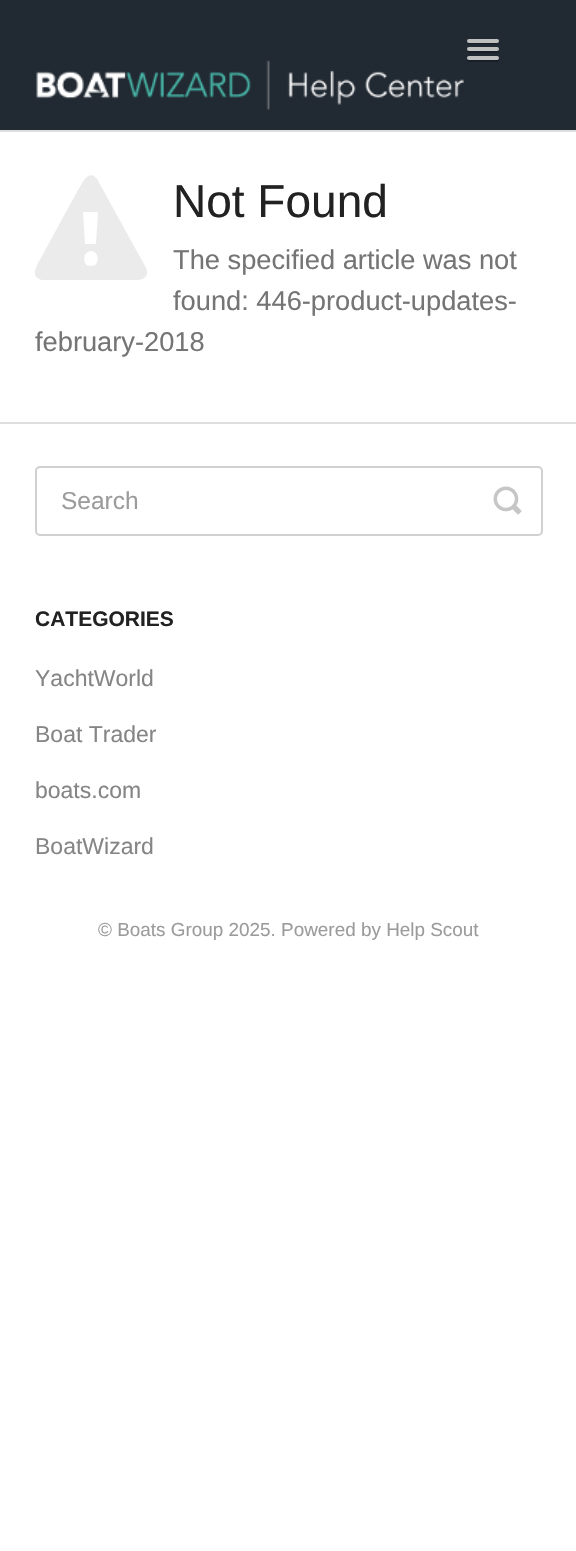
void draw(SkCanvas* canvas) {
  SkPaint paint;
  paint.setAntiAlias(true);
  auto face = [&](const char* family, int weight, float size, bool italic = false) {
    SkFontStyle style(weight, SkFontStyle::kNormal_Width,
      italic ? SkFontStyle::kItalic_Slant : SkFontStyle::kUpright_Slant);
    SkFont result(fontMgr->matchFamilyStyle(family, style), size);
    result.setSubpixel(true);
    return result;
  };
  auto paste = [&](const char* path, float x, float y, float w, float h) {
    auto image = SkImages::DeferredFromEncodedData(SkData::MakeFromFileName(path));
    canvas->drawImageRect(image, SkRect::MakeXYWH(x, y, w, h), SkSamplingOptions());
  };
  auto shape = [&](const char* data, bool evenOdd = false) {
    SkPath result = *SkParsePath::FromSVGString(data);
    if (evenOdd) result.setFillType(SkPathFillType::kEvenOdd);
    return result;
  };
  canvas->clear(0xffffffff);
  paint.setColor(0xff212932);
  canvas->drawRect(SkRect::MakeXYWH(0, 0, 576, 130), paint);
  paint.setColor(0xff191f26);
  canvas->drawPath(shape("M467.5 41L467 42.5C467.5 45 472.5 44 473.5 44H492.5C493.5 44 498.5 45 499 42.5L498.5 41C498.5 41.5 498 42 497 42H469C468 42 467.5 41.5 467.5 41Z"), paint);
  paint.setColor(0xffc0c0c0);
  canvas->drawRoundRect(SkRect::MakeXYWH(467, 39, 32, 4), 2, 2, paint);
  paint.setColor(0xff191f26);
  canvas->drawPath(shape("M467.5 50L467 51.5C467.5 54 472.5 53 473.5 53H492.5C493.5 53 498.5 54 499 51.5L498.5 50C498.5 50.5 497.5 51 497 51H469C468.5 51 467.5 50.5 467.5 50Z"), paint);
  paint.setColor(0xffc0c0c0);
  canvas->drawRoundRect(SkRect::MakeXYWH(467, 47, 32, 4), 2, 2, paint);
  paint.setColor(0xff191f26);
  canvas->drawPath(shape("M467.5 58.5C466.5 60 467 61.5 468.5 62H497.5C499 61.5 499.5 60 498.5 58.5L497 59.5H469Z"), paint);
  paint.setColor(0xffc0c0c0);
  canvas->drawRoundRect(SkRect::MakeXYWH(467, 56, 32, 4), 2, 2, paint);
  paste("img/1.png", 36, 60, 428, 51);
  paint.setColor(0xffdedede);
  canvas->drawRect(SkRect::MakeXYWH(0, 130, 576, 2), paint);
  canvas->drawRect(SkRect::MakeXYWH(0, 422, 576, 2), paint);
  paint.setColor(0xffebebeb);
  canvas->drawPath(shape("M145 266L97 179L94 176C86 172 81 186 78 190L42 256C39 262 28 277 42 280H132C137 280 145 281 147 274C147 272 147 269 145 266ZM98 212L96 244H85L83 212ZM91 266C82 267 82 251 91 251C100 251 100 267 91 266Z"), paint);
  paint.setStroke(true);
  paint.setStrokeWidth(2);
  paint.setColor(0xffd0d0d0);
  canvas->drawRoundRect(SkRect::MakeXYWH(36, 467, 506, 68), 4, 4, paint);
  paste("img/2.png", 493, 486, 29, 29);
  auto f0 = face("Liberation Sans", 400, 46);
  paint.setStroke(false);
  paint.setColor(0xff222222);
  canvas->drawString("Not Found", 173, 217, f0, paint);
  auto f1 = face("Liberation Sans", 400, 27.25f);
  paint.setColor(0xff757575);
  {
    const struct { const char* s; float x, y; } items[] = {
      {"The specified article was not", 173, 269},
      {"found: 446-product-updates-", 173, 310},
      {"february-2018", 35, 351},
    };
    for (auto [s, x, y] : items) {
      canvas->drawString(s, x, y, f1, paint);
    }
  }
  auto f2 = face("Liberation Sans", 400, 24.5f);
  paint.setColor(0xff9b9b9b);
  canvas->drawString("Search", 61, 509, f2, paint);
  auto f3 = face("Liberation Sans", 700, 21);
  paint.setColor(0xff222222);
  canvas->drawString("CATEGORIES", 35, 626, f3, paint);
  auto f4 = face("Liberation Sans", 400, 23);
  paint.setColor(0xff858585);
  {
    const struct { const char* s; float x, y; } items[] = {
      {"YachtWorld", 35, 686},
      {"Boat Trader", 35, 742},
      {"boats.com", 35, 798},
      {"BoatWizard", 35, 854},
    };
    for (auto [s, x, y] : items) {
      canvas->drawString(s, x, y, f4, paint);
    }
  }
  auto f5 = face("Liberation Sans", 400, 18.9f);
  paint.setColor(0xff9b9b9b);
  canvas->drawString("© Boats Group 2025. Powered by Help Scout", 98, 936, f5, paint);
}
